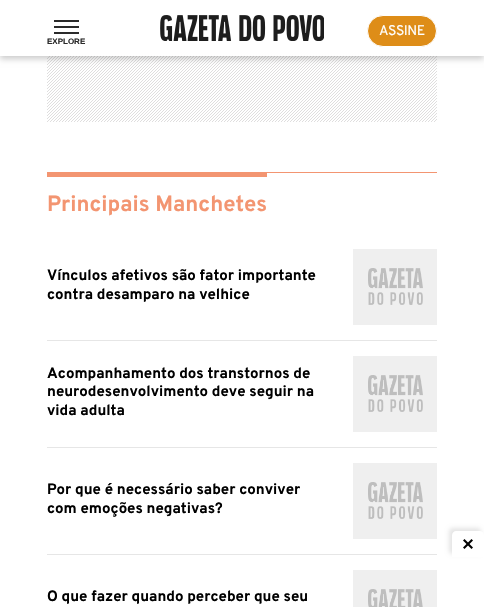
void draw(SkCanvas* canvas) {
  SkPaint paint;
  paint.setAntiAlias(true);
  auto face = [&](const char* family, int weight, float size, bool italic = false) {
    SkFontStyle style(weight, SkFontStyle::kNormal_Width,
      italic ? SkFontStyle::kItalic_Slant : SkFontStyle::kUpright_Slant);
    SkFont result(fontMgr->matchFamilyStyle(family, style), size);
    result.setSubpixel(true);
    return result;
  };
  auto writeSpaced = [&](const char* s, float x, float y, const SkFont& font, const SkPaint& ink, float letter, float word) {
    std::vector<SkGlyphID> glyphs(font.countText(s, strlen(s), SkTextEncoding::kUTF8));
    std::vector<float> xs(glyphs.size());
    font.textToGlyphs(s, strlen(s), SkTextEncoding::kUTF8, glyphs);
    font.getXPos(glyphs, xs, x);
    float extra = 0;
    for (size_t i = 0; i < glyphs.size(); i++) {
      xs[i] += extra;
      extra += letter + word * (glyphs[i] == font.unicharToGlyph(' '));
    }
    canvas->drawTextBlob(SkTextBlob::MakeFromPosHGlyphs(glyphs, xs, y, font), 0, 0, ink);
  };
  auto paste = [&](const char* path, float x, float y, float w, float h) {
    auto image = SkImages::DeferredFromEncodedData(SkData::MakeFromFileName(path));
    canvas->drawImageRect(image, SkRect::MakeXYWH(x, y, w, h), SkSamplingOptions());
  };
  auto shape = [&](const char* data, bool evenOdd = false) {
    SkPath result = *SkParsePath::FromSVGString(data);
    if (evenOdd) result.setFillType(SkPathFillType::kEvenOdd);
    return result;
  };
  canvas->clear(0xffffffff);
  paste("img/2.png", 47, 56, 390, 66);
  paint.setColor(0x33000000);
  paint.setMaskFilter(SkMaskFilter::MakeBlur(kNormal_SkBlurStyle, 3));
  canvas->drawRect(SkRect::MakeXYWH(0, 3, 484, 56), paint);
  paint.setMaskFilter(nullptr);
  paint.setColor(0xffffffff);
  canvas->drawRect(SkRect::MakeXYWH(0, 0, 484, 56), paint);
  paste("img/1.png", 160, 15, 164, 26);
  paint.setColor(0xffde8d18);
  canvas->drawRoundRect(SkRect::MakeXYWH(367.5f, 15.5f, 69, 31), 15.5f, 15.5f, paint);
  paint.setStroke(true);
  paint.setStrokeWidth(1);
  paint.setColor(0xffffffff);
  canvas->drawRoundRect(SkRect::MakeXYWH(367.5f, 15.5f, 69, 31), 15.5f, 15.5f, paint);
  paint.setStroke(false);
  {
    const struct { float x, y, w, h; SkColor color; } items[] = {
      {54, 20, 25, 2, 0xff2a2a2a},
      {54, 26, 25, 2, 0xff2a2a2a},
      {54, 32, 25, 2, 0xff2a2a2a},
      {47, 172, 390, 1, 0xfff39571},
      {47, 173, 220, 4, 0xfff39571},
      {47, 340, 390, 1, 0xffe6e6e6},
      {353, 249, 84, 76, 0xffefefef},
    };
    for (auto [x, y, w, h, color] : items) {
      paint.setColor(color);
      canvas->drawRect(SkRect::MakeXYWH(x, y, w, h), paint);
    }
  }
  paste("img/3.png", 368, 268, 55, 37);
  paint.setColor(0xffe6e6e6);
  canvas->drawRect(SkRect::MakeXYWH(47, 447, 390, 1), paint);
  paint.setColor(0xffefefef);
  canvas->drawRect(SkRect::MakeXYWH(353, 356, 84, 76), paint);
  paste("img/3.png", 368, 375, 55, 37);
  paint.setColor(0xffe6e6e6);
  canvas->drawRect(SkRect::MakeXYWH(47, 554, 390, 1), paint);
  paint.setColor(0xffefefef);
  canvas->drawRect(SkRect::MakeXYWH(353, 463, 84, 76), paint);
  paste("img/3.png", 368, 482, 55, 37);
  canvas->drawRect(SkRect::MakeXYWH(353, 570, 84, 37), paint);
  paste("img/4.png", 368, 589, 55, 18);
  paint.setColor(0x1a000000);
  paint.setMaskFilter(SkMaskFilter::MakeBlur(kNormal_SkBlurStyle, 2));
  canvas->drawRoundRect(SkRect::MakeXYWH(449, 528, 32, 26), 4, 4, paint);
  paint.setMaskFilter(nullptr);
  paint.setColor(0xffffffff);
  canvas->drawPath(shape("M456 531H480C482 531 484 533 484 535V557H452V535C452 533 454 531 456 531Z"), paint);
  paint.setColor(0xff000000);
  canvas->drawPath(shape("M463 547.5L471.5 539L473 540.5L464.5 549Z"), paint);
  canvas->drawPath(shape("M464.5 539L473 547.5L471.5 549L463 540.5Z"), paint);
  auto f0 = face("Overpass", 400, 14);
  paint.setColor(0xffffffff);
  writeSpaced("ASSINE", 379, 35, f0, paint, -0.5f, 0);
  auto f1 = face("Liberation Sans", 700, 8);
  paint.setColor(0xff2a2a2a);
  canvas->drawString("EXPLORE", 47, 44, f1, paint);
  auto f2 = face("Overpass", 700, 22);
  paint.setColor(0xfff39571);
  canvas->drawString("Principais Manchetes", 47, 211, f2, paint);
  auto f3 = face("Overpass", 700, 15);
  paint.setColor(0xff000000);
  {
    const struct { const char* s; float x, y; } items[] = {
      {"Vínculos afetivos são fator importante", 47, 280},
      {"contra desamparo na velhice", 47, 299},
      {"Acompanhamento dos transtornos de", 47, 378},
      {"neurodesenvolvimento deve seguir na", 47, 396},
      {"vida adulta", 47, 415},
      {"Por que é necessário saber conviver", 47, 494},
      {"com emoções negativas?", 47, 513},
      {"O que fazer quando perceber que seu", 47, 601},
    };
    for (auto [s, x, y] : items) {
      canvas->drawString(s, x, y, f3, paint);
    }
  }
}
